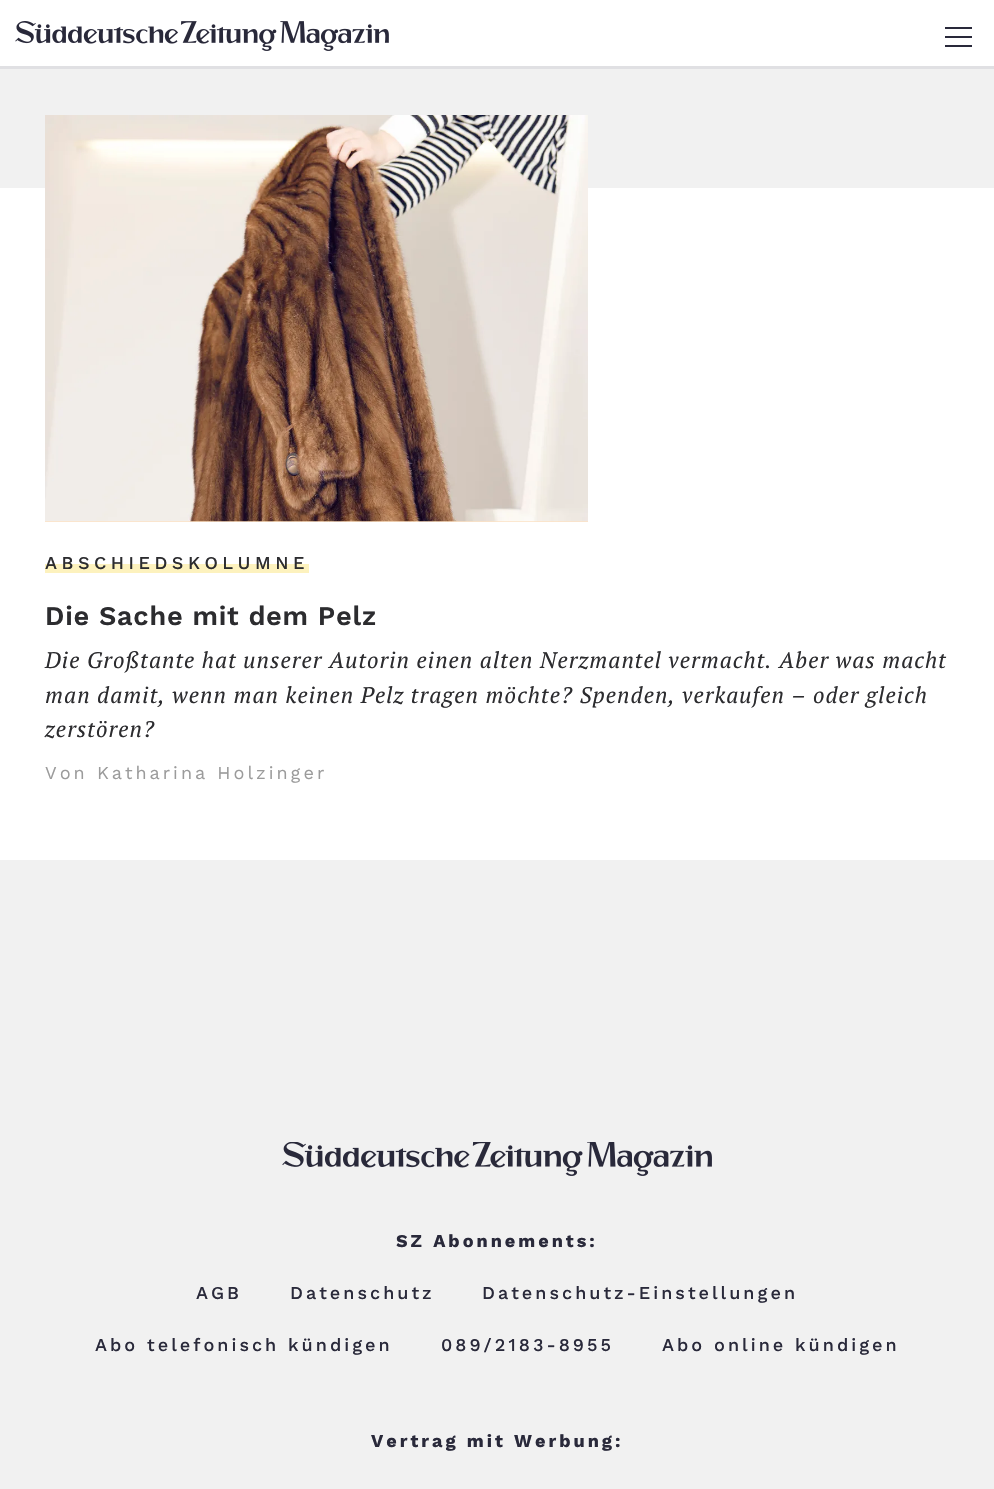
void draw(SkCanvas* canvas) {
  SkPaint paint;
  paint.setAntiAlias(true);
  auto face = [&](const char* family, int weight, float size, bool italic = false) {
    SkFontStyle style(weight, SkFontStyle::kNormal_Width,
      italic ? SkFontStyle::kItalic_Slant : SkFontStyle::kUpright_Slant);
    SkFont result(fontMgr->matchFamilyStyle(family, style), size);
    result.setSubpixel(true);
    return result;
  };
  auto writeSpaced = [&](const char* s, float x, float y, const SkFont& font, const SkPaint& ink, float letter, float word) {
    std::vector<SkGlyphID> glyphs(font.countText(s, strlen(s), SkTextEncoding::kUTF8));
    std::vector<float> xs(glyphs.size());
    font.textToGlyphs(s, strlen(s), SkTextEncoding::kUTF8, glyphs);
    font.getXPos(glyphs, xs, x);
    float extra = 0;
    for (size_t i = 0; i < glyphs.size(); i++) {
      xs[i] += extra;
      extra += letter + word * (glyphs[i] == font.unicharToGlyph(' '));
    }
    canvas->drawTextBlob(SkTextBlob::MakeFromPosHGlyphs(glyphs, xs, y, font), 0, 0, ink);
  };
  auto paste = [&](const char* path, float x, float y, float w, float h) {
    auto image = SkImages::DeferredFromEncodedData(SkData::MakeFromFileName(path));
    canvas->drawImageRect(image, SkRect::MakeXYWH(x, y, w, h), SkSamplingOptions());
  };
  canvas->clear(0xfff1f1f1);
  paint.setColor(0xffffffff);
  canvas->drawRect(SkRect::MakeXYWH(0, 0, 994, 66), paint);
  paint.setColor(0xffe0e0e3);
  canvas->drawRect(SkRect::MakeXYWH(0, 66, 994, 3), paint);
  paste("img/1.png", 15, 21, 374, 30);
  {
    const struct { float x, y, w, h; SkColor color; } items[] = {
      {945, 27, 27, 2, 0xff29293a},
      {945, 36, 27, 2, 0xff29293a},
      {945, 45, 27, 2, 0xff29293a},
      {0, 188, 994, 672, 0xffffffff},
      {45, 521, 543, 1, 0xfffde2c5},
    };
    for (auto [x, y, w, h, color] : items) {
      paint.setColor(color);
      canvas->drawRect(SkRect::MakeXYWH(x, y, w, h), paint);
    }
  }
  paste("img/2.png", 45, 115, 543, 407);
  paint.setColor(0xfffdf2be);
  canvas->drawRect(SkRect::MakeXYWH(45, 564, 264, 9), paint);
  paste("img/3.png", 282, 1142, 430, 34);
  auto f0 = face("Work Sans", 500, 18);
  paint.setColor(0xff2c2c2f);
  writeSpaced("ABSCHIEDSKOLUMNE", 45, 569, f0, paint, 4.5f, 0);
  auto f1 = face("Work Sans", 600, 27);
  writeSpaced("Die Sache mit dem Pelz", 45, 625, f1, paint, 0.75f, 0);
  auto f2 = face("PT Serif", 400, 22.5f, true);
  {
    const struct { const char* s; float x, y; } items[] = {
      {"Die Großtante hat unserer Autorin einen alten Nerzmantel vermacht. Aber was macht", 45, 668},
      {"man damit, wenn man keinen Pelz tragen möchte? Spenden, verkaufen – oder gleich", 45, 703},
      {"zerstören?", 45, 737},
    };
    for (auto [s, x, y] : items) {
      writeSpaced(s, x, y, f2, paint, 1.05f, 0);
    }
  }
  auto f3 = face("Work Sans", 400, 18);
  paint.setColor(0xff9b9b9b);
  writeSpaced("Von Katharina Holzinger", 45, 779, f3, paint, 3, 0);
  auto f4 = face("Work Sans", 700, 18);
  paint.setColor(0xff29293a);
  writeSpaced("SZ Abonnements:", 396, 1247, f4, paint, 3, 0);
  {
    const struct { const char* s; float x, y; } items[] = {
      {"AGB", 196, 1299},
      {"Datenschutz", 290, 1299},
      {"Datenschutz-Einstellungen", 482, 1299},
      {"Abo telefonisch kündigen", 95, 1351},
      {"089/2183-8955", 441, 1351},
      {"Abo online kündigen", 662, 1351},
    };
    for (auto [s, x, y] : items) {
      writeSpaced(s, x, y, f0, paint, 3, 0);
    }
  }
  writeSpaced("Vertrag mit Werbung:", 371, 1447, f4, paint, 3, 0);
}
